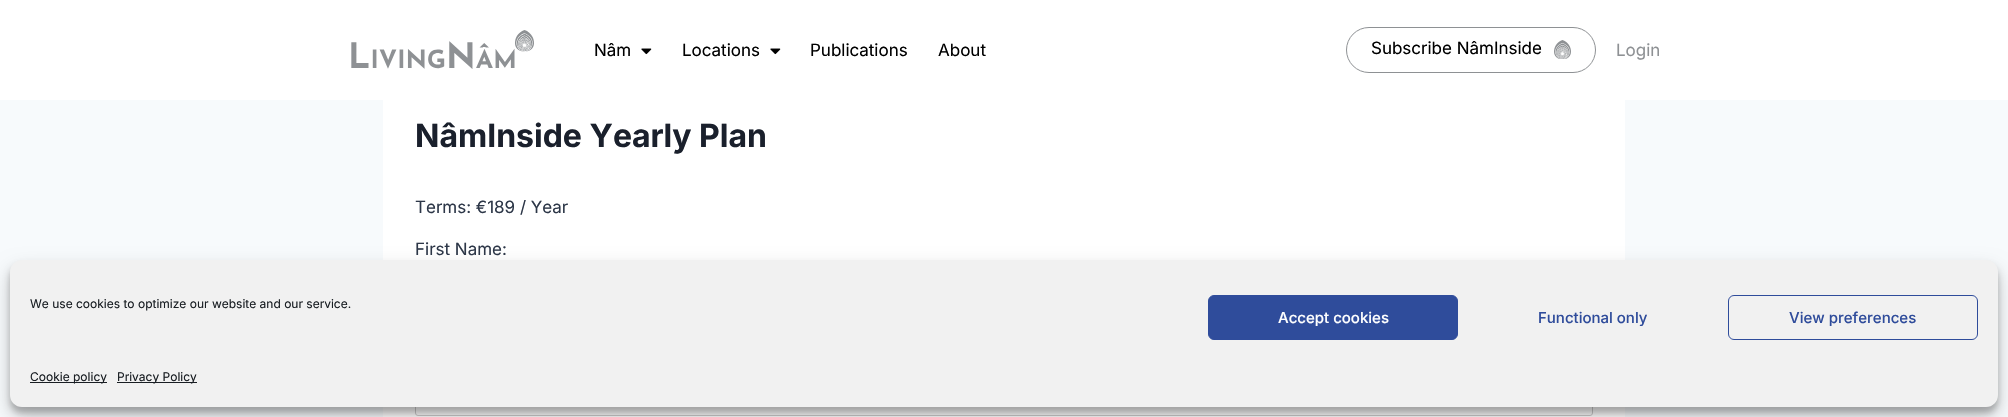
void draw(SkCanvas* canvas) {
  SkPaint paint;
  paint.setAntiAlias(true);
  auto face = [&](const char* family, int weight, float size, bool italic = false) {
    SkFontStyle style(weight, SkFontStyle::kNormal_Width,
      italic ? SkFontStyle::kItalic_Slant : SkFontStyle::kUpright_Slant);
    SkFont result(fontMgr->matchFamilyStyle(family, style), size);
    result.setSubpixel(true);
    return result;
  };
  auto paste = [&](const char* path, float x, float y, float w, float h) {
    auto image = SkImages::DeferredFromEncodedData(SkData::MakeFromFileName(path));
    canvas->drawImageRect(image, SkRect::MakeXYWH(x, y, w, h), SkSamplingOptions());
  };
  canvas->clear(0xfff7fafc);
  paint.setColor(0xffffffff);
  canvas->drawRect(SkRect::MakeXYWH(0, 0, 2008, 100), paint);
  paste("img/1.png", 351, 30, 183, 39);
  paste("img/2.png", 641, 48, 11, 7);
  paste("img/2.png", 770, 48, 11, 7);
  paint.setStroke(true);
  paint.setStrokeWidth(1);
  paint.setColor(0xff8e9194);
  canvas->drawRoundRect(SkRect::MakeXYWH(1346.5f, 27.5f, 249, 45), 22.5f, 22.5f, paint);
  paste("img/3.png", 1554, 40, 17, 19);
  paint.setStroke(false);
  paint.setColor(0xffffffff);
  canvas->drawRect(SkRect::MakeXYWH(383, 100, 1242, 317), paint);
  paint.setStroke(true);
  paint.setColor(0xffcccccc);
  canvas->drawRoundRect(SkRect::MakeXYWH(415.5f, 362.5f, 1177, 53), 2.5f, 2.5f, paint);
  paint.setStroke(false);
  paint.setColor(0x3b000000);
  paint.setMaskFilter(SkMaskFilter::MakeBlur(kNormal_SkBlurStyle, 3));
  canvas->drawRoundRect(SkRect::MakeXYWH(10, 266, 1988, 147), 12, 12, paint);
  paint.setMaskFilter(nullptr);
  paint.setColor(0x30000000);
  paint.setMaskFilter(SkMaskFilter::MakeBlur(kNormal_SkBlurStyle, 10));
  canvas->drawRoundRect(SkRect::MakeXYWH(10, 270, 1988, 147), 12, 12, paint);
  paint.setMaskFilter(nullptr);
  paint.setColor(0xfff1f1f1);
  canvas->drawRoundRect(SkRect::MakeXYWH(10, 260, 1988, 147), 12, 12, paint);
  paint.setColor(0xff2f4c9b);
  canvas->drawRoundRect(SkRect::MakeXYWH(1208.5f, 295.5f, 249, 44), 5.5f, 5.5f, paint);
  paint.setStroke(true);
  canvas->drawRoundRect(SkRect::MakeXYWH(1208.5f, 295.5f, 249, 44), 5.5f, 5.5f, paint);
  canvas->drawRoundRect(SkRect::MakeXYWH(1728.5f, 295.5f, 249, 44), 5.5f, 5.5f, paint);
  paint.setStroke(false);
  paint.setColor(0xff191e23);
  canvas->drawRect(SkRect::MakeXYWH(30, 382, 77, 1), paint);
  canvas->drawRect(SkRect::MakeXYWH(117, 382, 80, 1), paint);
  auto f0 = face("Inter", 400, 17);
  paint.setColor(0xff000000);
  {
    const struct { const char* s; float x, y; } items[] = {
      {"Nâm", 594, 56},
      {"Locations", 682, 56},
      {"Publications", 810, 56},
      {"About", 938, 56},
      {"Subscribe NâmInside", 1371, 54},
    };
    for (auto [s, x, y] : items) {
      canvas->drawString(s, x, y, f0, paint);
    }
  }
  paint.setColor(0xff8e9194);
  canvas->drawString("Login", 1616, 56, f0, paint);
  auto f1 = face("Inter", 700, 32);
  paint.setColor(0xff1a202c);
  canvas->drawString("NâmInside Yearly Plan", 415, 147, f1, paint);
  paint.setColor(0xff2d3748);
  canvas->drawString("Terms: €189 / Year", 415, 213, f0, paint);
  canvas->drawString("First Name:", 415, 255, f0, paint);
  auto f2 = face("Inter", 400, 12);
  paint.setColor(0xff191e23);
  canvas->drawString("We use cookies to optimize our website and our service.", 30, 308, f2, paint);
  auto f3 = face("Inter", 500, 15);
  paint.setColor(0xffffffff);
  canvas->drawString("Accept cookies", 1278, 323, f3, paint);
  paint.setColor(0xff2f4c9b);
  canvas->drawString("Functional only", 1538, 323, f3, paint);
  canvas->drawString("View preferences", 1789, 323, f3, paint);
  paint.setColor(0xff191e23);
  canvas->drawString("Cookie policy", 30, 381, f2, paint);
  canvas->drawString("Privacy Policy", 117, 381, f2, paint);
}
